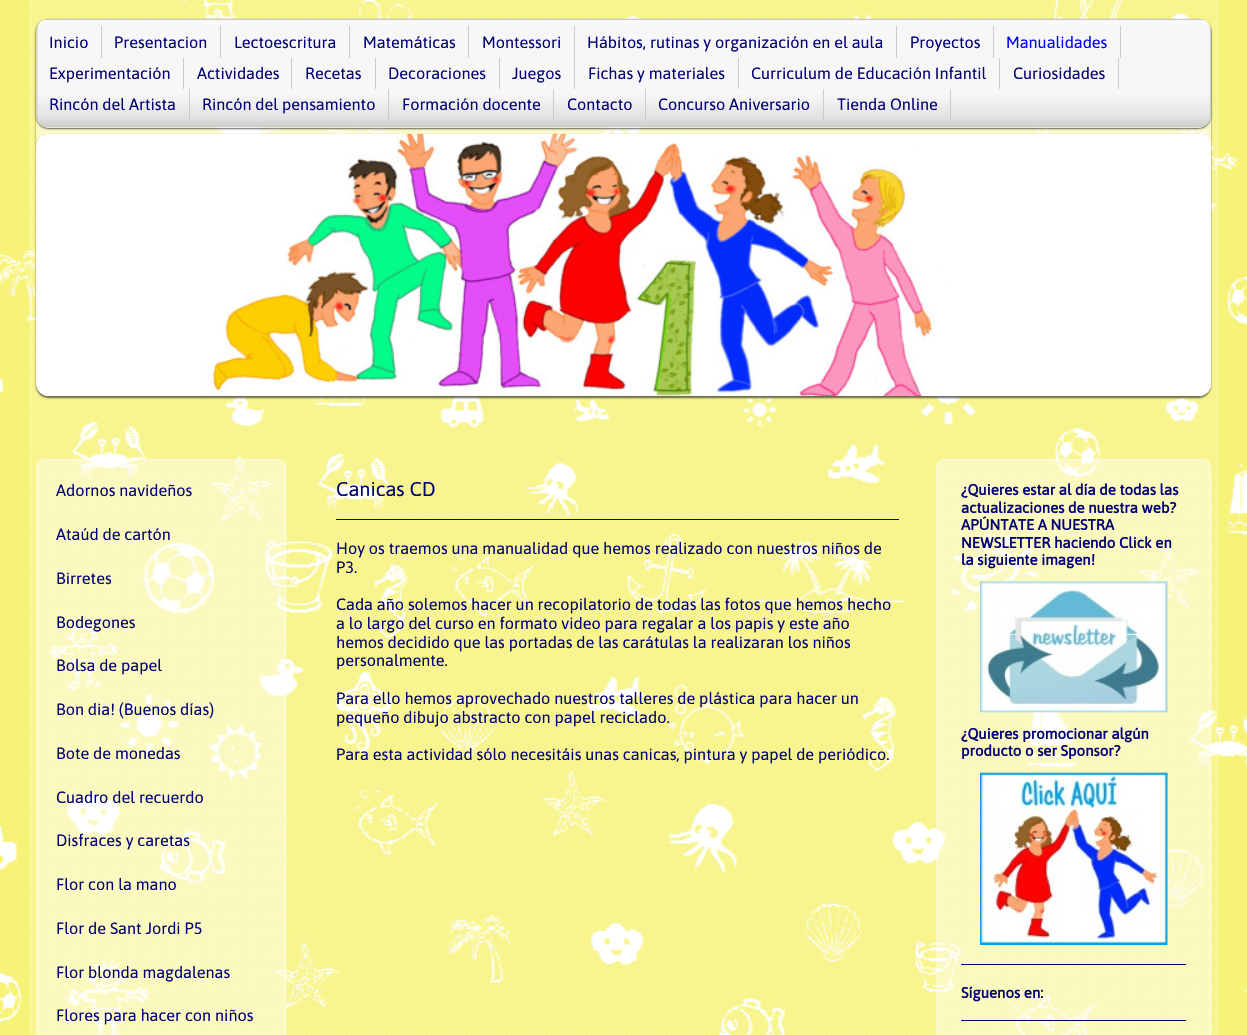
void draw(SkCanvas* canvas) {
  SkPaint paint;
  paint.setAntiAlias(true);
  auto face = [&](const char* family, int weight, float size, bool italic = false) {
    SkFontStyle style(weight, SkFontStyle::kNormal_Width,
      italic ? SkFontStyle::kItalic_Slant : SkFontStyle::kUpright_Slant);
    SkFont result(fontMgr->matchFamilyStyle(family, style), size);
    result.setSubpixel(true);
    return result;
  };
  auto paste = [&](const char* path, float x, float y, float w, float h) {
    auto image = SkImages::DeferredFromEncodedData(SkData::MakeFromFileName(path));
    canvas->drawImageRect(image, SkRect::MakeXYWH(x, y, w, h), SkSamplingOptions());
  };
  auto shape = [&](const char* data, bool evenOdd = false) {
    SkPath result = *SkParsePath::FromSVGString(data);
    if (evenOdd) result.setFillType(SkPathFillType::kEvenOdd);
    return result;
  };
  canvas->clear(0xffffffff);
  paste("img/1.png", 0, 0, 1247, 1035);
  paste("img/2.png", 30, 0, 1188, 1035);
  canvas->save();
  canvas->clipPath(shape("M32 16H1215V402H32ZM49 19H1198C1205 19 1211 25 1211 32V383C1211 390 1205 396 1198 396H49C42 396 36 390 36 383V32C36 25 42 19 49 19Z", true), true);
  paint.setColor(0x99000000);
  paint.setMaskFilter(SkMaskFilter::MakeBlur(kNormal_SkBlurStyle, 1));
  canvas->drawRoundRect(SkRect::MakeXYWH(36, 20, 1175, 378), 13, 13, paint);
  paint.setMaskFilter(nullptr);
  canvas->restore();
  paste("img/3.png", 36, 18, 1176, 379);
  canvas->save();
  canvas->clipPath(shape("M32 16H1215V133H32ZM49 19H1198C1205 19 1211 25 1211 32V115C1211 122 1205 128 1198 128H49C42 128 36 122 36 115V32C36 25 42 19 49 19Z", true), true);
  paint.setMaskFilter(SkMaskFilter::MakeBlur(kNormal_SkBlurStyle, 1));
  canvas->drawRoundRect(SkRect::MakeXYWH(36, 20, 1175, 109), 13, 13, paint);
  paint.setMaskFilter(nullptr);
  canvas->restore();
  paste("img/4.png", 37, 19, 1173, 8);
  paste("img/5.png", 36, 26, 1175, 94);
  paste("img/6.png", 36, 94, 1175, 26);
  {
    const struct { float x, y, w, h; SkColor color; } items[] = {
      {101, 26, 1, 32, 0xffcbcbcb},
      {220, 26, 1, 32, 0xffcbcbcb},
      {349, 26, 1, 32, 0xffcbcbcb},
      {468, 26, 1, 32, 0xffcbcbcb},
      {574, 26, 1, 63, 0xffcbcbcb},
      {896, 26, 1, 32, 0xffcbcbcb},
      {993, 26, 1, 32, 0xffcbcbcb},
      {1120, 26, 1, 32, 0xffcbcbcb},
      {183, 58, 1, 31, 0xffcbcbcb},
      {291, 58, 1, 31, 0xffcbcbcb},
      {375, 58, 1, 31, 0xffcbcbcb},
      {499, 58, 1, 31, 0xffcbcbcb},
      {738, 58, 1, 31, 0xffcbcbcb},
      {999, 58, 1, 31, 0xffcbcbcb},
      {1118, 58, 1, 31, 0xffcbcbcb},
      {189, 89, 1, 31, 0xffcbcbcb},
      {388, 89, 1, 31, 0xffcbcbcb},
      {553, 89, 1, 31, 0xffcbcbcb},
      {645, 89, 1, 31, 0xffcbcbcb},
      {823, 89, 1, 31, 0xffcbcbcb},
      {950, 89, 1, 31, 0xffcbcbcb},
    };
    for (auto [x, y, w, h, color] : items) {
      paint.setColor(color);
      canvas->drawRect(SkRect::MakeXYWH(x, y, w, h), paint);
    }
  }
  paste("img/7.png", 37, 120, 1173, 8);
  canvas->save();
  canvas->clipPath(shape("M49 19H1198C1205 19 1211 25 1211 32V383C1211 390 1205 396 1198 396H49C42 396 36 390 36 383V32C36 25 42 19 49 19Z"), true);
  paint.setColor(0x99000000);
  paint.setMaskFilter(SkMaskFilter::MakeBlur(kNormal_SkBlurStyle, 1));
  canvas->drawRoundRect(SkRect::MakeXYWH(36, 135, 1175, 263), 13, 13, paint);
  paint.setMaskFilter(nullptr);
  canvas->restore();
  paint.setColor(0xffeeeeee);
  canvas->drawRoundRect(SkRect::MakeXYWH(36, 134, 1175, 262), 13, 13, paint);
  paste("img/8.png", 36, 133, 1175, 263);
  paste("img/9.png", 36, 458, 251, 11);
  paste("img/10.png", 36, 468, 251, 45);
  paste("img/11.png", 36, 512, 251, 45);
  paste("img/12.png", 36, 556, 251, 44);
  paste("img/13.png", 36, 600, 251, 44);
  paste("img/14.png", 36, 643, 251, 45);
  paste("img/15.png", 36, 687, 251, 45);
  paste("img/16.png", 36, 731, 251, 44);
  paste("img/17.png", 36, 775, 251, 44);
  paste("img/18.png", 36, 818, 251, 45);
  paste("img/19.png", 36, 862, 251, 45);
  paste("img/20.png", 36, 906, 251, 44);
  paste("img/21.png", 36, 950, 251, 44);
  paste("img/22.png", 36, 993, 251, 42);
  paint.setColor(0xff020276);
  canvas->drawRect(SkRect::MakeXYWH(336, 519, 563, 1), paint);
  paste("img/23.png", 936, 458, 276, 11);
  paste("img/24.png", 936, 468, 276, 567);
  paste("img/25.png", 980, 581, 188, 132);
  paste("img/26.png", 980, 772, 188, 173);
  canvas->drawRect(SkRect::MakeXYWH(961, 964, 225, 1), paint);
  canvas->drawRect(SkRect::MakeXYWH(961, 1020, 225, 1), paint);
  auto f0 = face("Asap", 400, 16.25f);
  {
    const struct { const char* s; float x, y; } items[] = {
      {"Inicio", 49, 48},
      {"Presentacion", 114, 48},
      {"Lectoescritura", 234, 48},
      {"Matemáticas", 363, 48},
      {"Montessori", 482, 48},
      {"Hábitos, rutinas y organización en el aula", 587, 48},
      {"Proyectos", 910, 48},
    };
    for (auto [s, x, y] : items) {
      canvas->drawString(s, x, y, f0, paint);
    }
  }
  paint.setColor(0xff0000ff);
  canvas->drawString("Manualidades", 1006, 48, f0, paint);
  paint.setColor(0xff020276);
  {
    const struct { const char* s; float x, y; } items[] = {
      {"Experimentación", 49, 79},
      {"Actividades", 197, 79},
      {"Recetas", 305, 79},
      {"Decoraciones", 388, 79},
      {"Juegos", 512, 79},
      {"Fichas y materiales", 588, 79},
      {"Curriculum de Educación Infantil", 751, 79},
      {"Curiosidades", 1013, 79},
      {"Rincón del Artista", 49, 110},
      {"Rincón del pensamiento", 202, 110},
      {"Formación docente", 402, 110},
      {"Contacto", 567, 110},
      {"Concurso Aniversario", 658, 110},
      {"Tienda Online", 837, 110},
      {"Adornos navideños", 56, 496},
      {"Ataúd de cartón", 56, 540},
      {"Birretes", 56, 584},
      {"Bodegones", 56, 628},
      {"Bolsa de papel", 56, 671},
      {"Bon dia! (Buenos días)", 56, 715},
      {"Bote de monedas", 56, 759},
      {"Cuadro del recuerdo", 56, 803},
      {"Disfraces y caretas", 56, 846},
      {"Flor con la mano", 56, 890},
      {"Flor de Sant Jordi P5", 56, 934},
      {"Flor blonda magdalenas", 56, 978},
      {"Flores para hacer con niños", 56, 1021},
    };
    for (auto [s, x, y] : items) {
      canvas->drawString(s, x, y, f0, paint);
    }
  }
  auto f1 = face("Asap", 400, 20);
  canvas->drawString("Canicas CD", 336, 496, f1, paint);
  {
    const struct { const char* s; float x, y; } items[] = {
      {"Hoy os traemos una manualidad que hemos realizado con nuestros niños de", 336, 554},
      {"P3.", 336, 573},
      {"Cada año solemos hacer un recopilatorio de todas las fotos que hemos hecho", 336, 610},
      {"a lo largo del curso en formato video para regalar a los papis y este año", 336, 629},
      {"hemos decidido que las portadas de las carátulas la realizaran los niños", 336, 648},
      {"personalmente.", 336, 666},
      {"Para ello hemos aprovechado nuestros talleres de plástica para hacer un", 336, 704},
      {"pequeño dibujo abstracto con papel reciclado.", 336, 723},
      {"Para esta actividad sólo necesitáis unas canicas, pintura y papel de periódico.", 336, 760},
    };
    for (auto [s, x, y] : items) {
      canvas->drawString(s, x, y, f0, paint);
    }
  }
  auto f2 = face("Asap", 700, 15);
  {
    const struct { const char* s; float x, y; } items[] = {
      {"¿Quieres estar al día de todas las", 961, 495},
      {"actualizaciones de nuestra web?", 961, 513},
      {"APÚNTATE A NUESTRA", 961, 530},
      {"NEWSLETTER haciendo Click en", 961, 548},
      {"la siguiente imagen!", 961, 565},
      {"¿Quieres promocionar algún", 961, 739},
      {"producto o ser Sponsor?", 961, 756},
      {"Síguenos en:", 961, 998},
    };
    for (auto [s, x, y] : items) {
      canvas->drawString(s, x, y, f2, paint);
    }
  }
}
